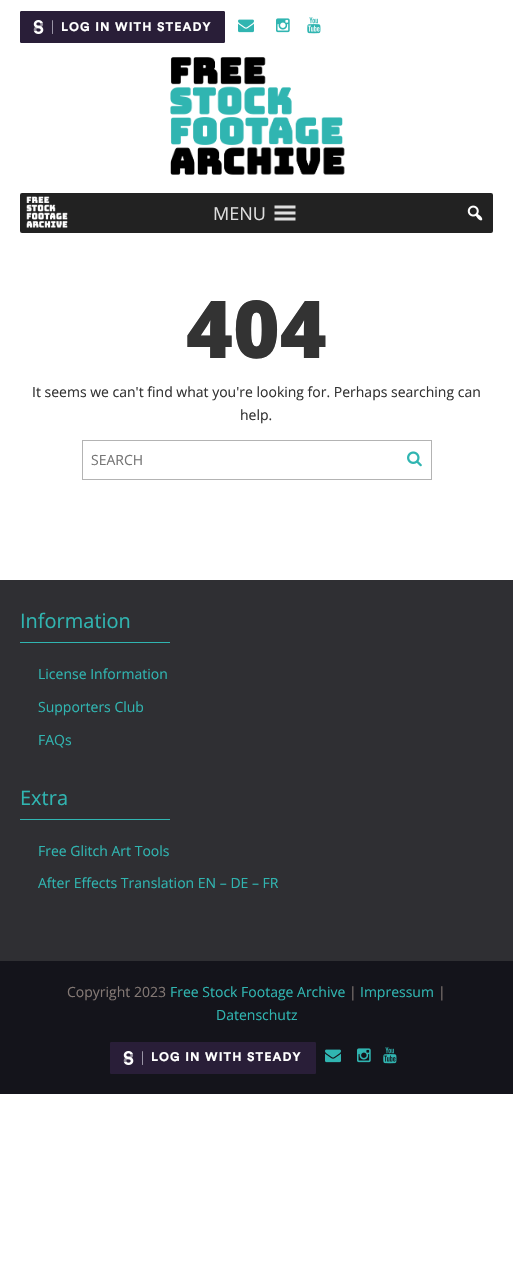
void draw(SkCanvas* canvas) {
  SkPaint paint;
  paint.setAntiAlias(true);
  auto face = [&](const char* family, int weight, float size, bool italic = false) {
    SkFontStyle style(weight, SkFontStyle::kNormal_Width,
      italic ? SkFontStyle::kItalic_Slant : SkFontStyle::kUpright_Slant);
    SkFont result(fontMgr->matchFamilyStyle(family, style), size);
    result.setSubpixel(true);
    return result;
  };
  auto writeSpaced = [&](const char* s, float x, float y, const SkFont& font, const SkPaint& ink, float letter, float word) {
    std::vector<SkGlyphID> glyphs(font.countText(s, strlen(s), SkTextEncoding::kUTF8));
    std::vector<float> xs(glyphs.size());
    font.textToGlyphs(s, strlen(s), SkTextEncoding::kUTF8, glyphs);
    font.getXPos(glyphs, xs, x);
    float extra = 0;
    for (size_t i = 0; i < glyphs.size(); i++) {
      xs[i] += extra;
      extra += letter + word * (glyphs[i] == font.unicharToGlyph(' '));
    }
    canvas->drawTextBlob(SkTextBlob::MakeFromPosHGlyphs(glyphs, xs, y, font), 0, 0, ink);
  };
  auto paste = [&](const char* path, float x, float y, float w, float h) {
    auto image = SkImages::DeferredFromEncodedData(SkData::MakeFromFileName(path));
    canvas->drawImageRect(image, SkRect::MakeXYWH(x, y, w, h), SkSamplingOptions());
  };
  canvas->clear(0xffffffff);
  paint.setColor(0xff291e38);
  canvas->drawRoundRect(SkRect::MakeXYWH(20.5f, 11.5f, 204, 31), 0.5f, 0.5f, paint);
  paint.setStroke(true);
  paint.setStrokeWidth(1);
  canvas->drawRoundRect(SkRect::MakeXYWH(20.5f, 11.5f, 204, 31), 0.5f, 0.5f, paint);
  paste("img/1.png", 33, 20, 11, 14);
  paint.setStroke(false);
  paint.setColor(0xff9a95a6);
  canvas->drawRoundRect(SkRect::MakeXYWH(52, 20, 1, 14), 0.5f, 0.5f, paint);
  paste("img/2.png", 238, 19, 16, 14);
  paste("img/3.png", 276, 18, 14, 15);
  paste("img/4.png", 307, 17, 14, 17);
  paste("img/5.png", 170, 57, 175, 118);
  paint.setColor(0xff222222);
  canvas->drawRoundRect(SkRect::MakeXYWH(20, 193, 473, 40), 2, 2, paint);
  paste("img/6.png", 26, 196, 42, 32);
  paste("img/7.png", 274, 205, 22, 16);
  paste("img/8.png", 467, 205, 16, 16);
  paint.setStroke(true);
  paint.setColor(0xffb3b3b3);
  canvas->drawRect(SkRect::MakeXYWH(82.5f, 440.5f, 349, 39), paint);
  paste("img/9.png", 407, 451, 15, 16);
  paint.setStroke(false);
  {
    const struct { float x, y, w, h; SkColor color; } items[] = {
      {0, 580, 513, 381, 0xff2f2f33},
      {20, 642, 150, 1, 0xff30b5b1},
      {20, 819, 150, 1, 0xff30b5b1},
      {0, 961, 513, 133, 0xff14141b},
    };
    for (auto [x, y, w, h, color] : items) {
      paint.setColor(color);
      canvas->drawRect(SkRect::MakeXYWH(x, y, w, h), paint);
    }
  }
  paint.setColor(0xff291e38);
  canvas->drawRoundRect(SkRect::MakeXYWH(110.5f, 1042.5f, 205, 31), 0.5f, 0.5f, paint);
  paint.setStroke(true);
  canvas->drawRoundRect(SkRect::MakeXYWH(110.5f, 1042.5f, 205, 31), 0.5f, 0.5f, paint);
  paste("img/1.png", 123, 1051, 11, 14);
  paint.setStroke(false);
  paint.setColor(0xff9a95a6);
  canvas->drawRoundRect(SkRect::MakeXYWH(142, 1051, 1, 14), 0.5f, 0.5f, paint);
  paste("img/10.png", 325, 1049, 16, 14);
  paste("img/11.png", 357, 1048, 14, 15);
  paste("img/12.png", 383, 1047, 14, 17);
  auto f0 = face("Circular", 700, 12);
  paint.setColor(0xffffffff);
  writeSpaced("LOG IN WITH STEADY", 61, 31, f0, paint, 1.4f, 0);
  auto f1 = face("Open Sans", 400, 18);
  paint.setColor(0xffdddddd);
  canvas->drawString("MENU", 213, 220, f1, paint);
  auto f2 = face("Open Sans", 800, 80);
  paint.setColor(0xff333333);
  canvas->drawString("404", 186, 358, f2, paint);
  auto f3 = face("Open Sans", 400, 14);
  canvas->drawString("It seems we can't find what you're looking for. Perhaps searching can", 32, 397, f3, paint);
  canvas->drawString("help.", 240, 420, f3, paint);
  paint.setColor(0xff757575);
  canvas->drawString("SEARCH", 91, 465, f3, paint);
  auto f4 = face("Open Sans", 400, 20);
  paint.setColor(0xff30b5b1);
  canvas->drawString("Information", 20, 628, f4, paint);
  {
    const struct { const char* s; float x, y; } items[] = {
      {"License Information", 38, 679},
      {"Supporters Club", 38, 712},
      {"FAQs", 38, 745},
    };
    for (auto [s, x, y] : items) {
      canvas->drawString(s, x, y, f3, paint);
    }
  }
  canvas->drawString("Extra", 20, 805, f4, paint);
  canvas->drawString("Free Glitch Art Tools", 38, 856, f3, paint);
  canvas->drawString("After Effects Translation EN – DE – FR", 38, 888, f3, paint);
  paint.setColor(0xff837874);
  canvas->drawString("Copyright 2023", 67, 997, f3, paint);
  paint.setColor(0xff30b5b1);
  canvas->drawString("Free Stock Footage Archive", 170, 997, f3, paint);
  paint.setColor(0xff837874);
  canvas->drawString("|", 349, 997, f3, paint);
  paint.setColor(0xff30b5b1);
  canvas->drawString("Impressum", 360, 997, f3, paint);
  paint.setColor(0xff837874);
  canvas->drawString("|", 438, 997, f3, paint);
  paint.setColor(0xff30b5b1);
  canvas->drawString("Datenschutz", 216, 1020, f3, paint);
  paint.setColor(0xffffffff);
  writeSpaced("LOG IN WITH STEADY", 151, 1061, f0, paint, 1.4f, 0);
}
